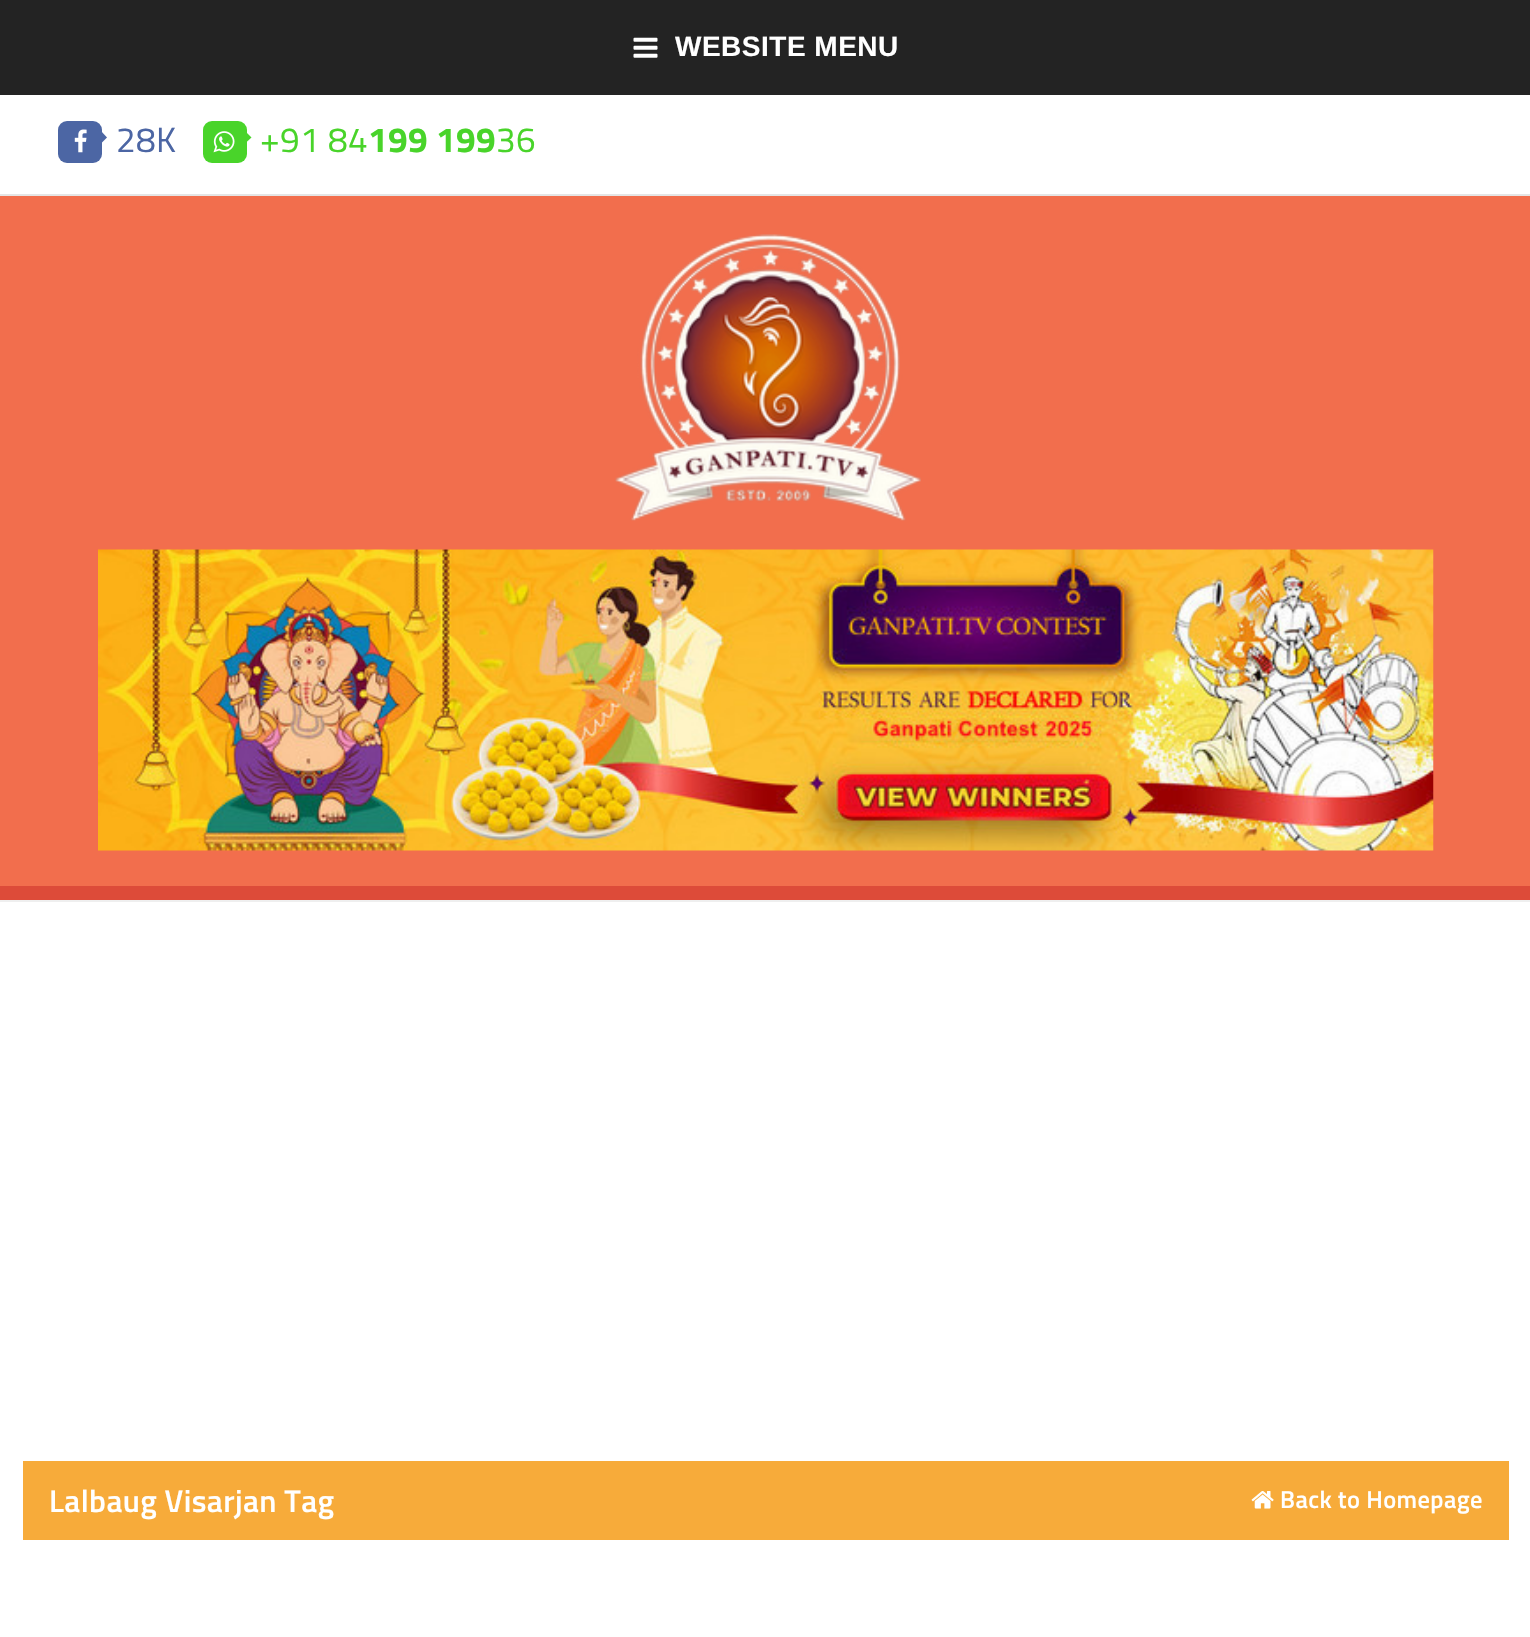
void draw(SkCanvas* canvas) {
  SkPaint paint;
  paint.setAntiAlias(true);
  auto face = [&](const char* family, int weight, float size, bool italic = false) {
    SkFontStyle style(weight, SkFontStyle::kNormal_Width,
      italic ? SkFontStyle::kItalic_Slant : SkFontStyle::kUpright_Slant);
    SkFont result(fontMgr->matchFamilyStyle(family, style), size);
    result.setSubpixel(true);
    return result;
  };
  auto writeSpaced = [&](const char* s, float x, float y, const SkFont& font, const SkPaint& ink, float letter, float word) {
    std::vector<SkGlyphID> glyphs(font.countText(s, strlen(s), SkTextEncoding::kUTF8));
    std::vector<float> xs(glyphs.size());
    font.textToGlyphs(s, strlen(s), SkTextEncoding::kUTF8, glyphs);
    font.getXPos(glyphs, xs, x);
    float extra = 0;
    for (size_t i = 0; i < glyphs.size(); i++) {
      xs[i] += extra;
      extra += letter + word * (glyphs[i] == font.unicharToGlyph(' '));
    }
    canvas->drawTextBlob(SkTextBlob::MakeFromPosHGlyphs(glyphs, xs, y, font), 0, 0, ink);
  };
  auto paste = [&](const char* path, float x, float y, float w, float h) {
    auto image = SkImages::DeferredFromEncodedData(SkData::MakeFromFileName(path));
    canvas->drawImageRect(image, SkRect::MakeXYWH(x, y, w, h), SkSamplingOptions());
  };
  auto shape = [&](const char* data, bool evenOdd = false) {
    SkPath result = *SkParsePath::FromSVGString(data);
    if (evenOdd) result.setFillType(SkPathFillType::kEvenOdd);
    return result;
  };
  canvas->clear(0xffffffff);
  paint.setColor(0xff232323);
  canvas->drawRect(SkRect::MakeXYWH(0, 0, 1530, 95), paint);
  paste("img/1.png", 633, 37, 25, 21);
  paint.setColor(0xfff26e4d);
  canvas->drawRect(SkRect::MakeXYWH(0, 196, 1530, 690), paint);
  paint.setColor(0xffe5e5e5);
  canvas->drawRect(SkRect::MakeXYWH(0, 194, 1530, 2), paint);
  paint.setColor(0xff4c66a4);
  canvas->drawRoundRect(SkRect::MakeXYWH(58, 121, 44, 42), 9, 9, paint);
  paste("img/2.png", 74, 129, 13, 24);
  canvas->drawPath(shape("M101 131L107 137.5L101 143.5L94.5 137.5Z"), paint);
  paint.setColor(0xff49d42a);
  canvas->drawRoundRect(SkRect::MakeXYWH(203, 121, 44, 42), 9, 9, paint);
  paste("img/3.png", 213, 131, 22, 22);
  canvas->drawPath(shape("M245 131L251.5 137.5L245 143.5L239 137.5Z"), paint);
  paste("img/4.png", 615, 234, 306, 287);
  paste("img/5.png", 98, 549, 1336, 302);
  {
    const struct { float x, y, w, h; SkColor color; } items[] = {
      {0, 886, 1530, 14, 0xffdd4b39},
      {0, 900, 1530, 2, 0xffefefef},
      {23, 1461, 1486, 79, 0xfff7ab3a},
    };
    for (auto [x, y, w, h, color] : items) {
      paint.setColor(color);
      canvas->drawRect(SkRect::MakeXYWH(x, y, w, h), paint);
    }
  }
  paste("img/6.png", 1251, 1491, 23, 18);
  auto f0 = face("Liberation Sans", 700, 28);
  paint.setColor(0xffffffff);
  writeSpaced("WEBSITE MENU", 675, 56, f0, paint, 0.5f, 0);
  auto f1 = face("Titillium Web", 400, 35);
  paint.setColor(0xff4c66a4);
  writeSpaced("28K", 116, 152, f1, paint, 0.4f, 0);
  paint.setColor(0xff49d42a);
  writeSpaced("+91 84", 260, 152, f1, paint, 0.4f, 0);
  auto f2 = face("Titillium Web", 700, 35);
  writeSpaced("199 199", 368, 152, f2, paint, 0.4f, 0);
  writeSpaced("36", 496, 152, f1, paint, 0.4f, 0);
  auto f3 = face("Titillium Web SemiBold", 600, 31.5f);
  paint.setColor(0xffffffff);
  writeSpaced("Lalbaug Visarjan Tag", 49, 1512, f3, paint, 0.4f, 0);
  auto f4 = face("Titillium Web SemiBold", 600, 24.5f);
  writeSpaced("Back to Homepage", 1280, 1508, f4, paint, 0.4f, 0);
}
